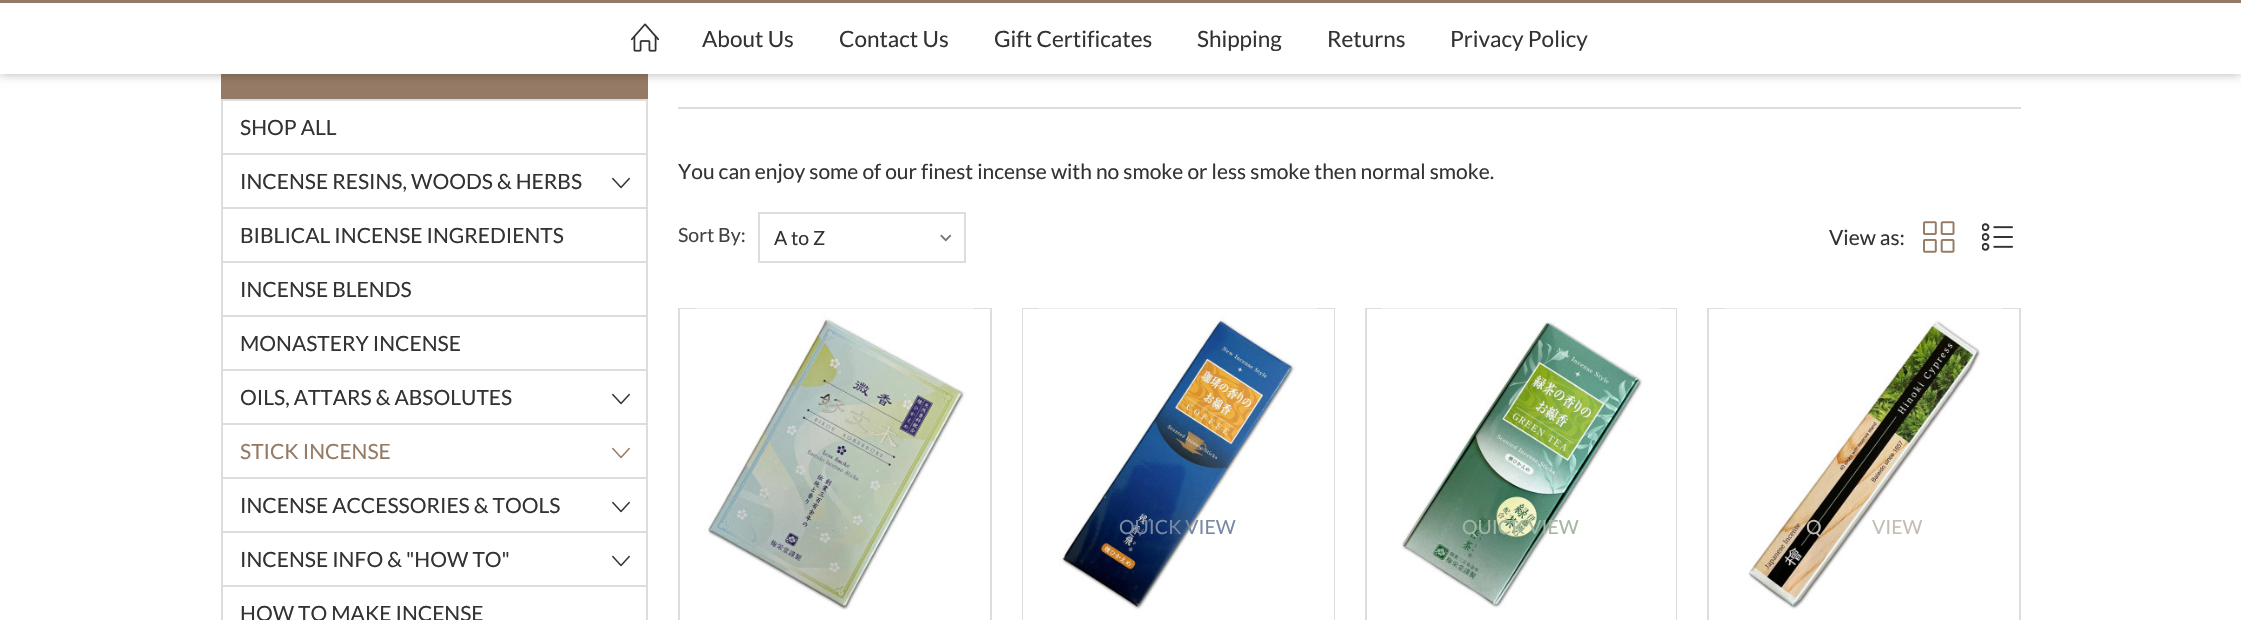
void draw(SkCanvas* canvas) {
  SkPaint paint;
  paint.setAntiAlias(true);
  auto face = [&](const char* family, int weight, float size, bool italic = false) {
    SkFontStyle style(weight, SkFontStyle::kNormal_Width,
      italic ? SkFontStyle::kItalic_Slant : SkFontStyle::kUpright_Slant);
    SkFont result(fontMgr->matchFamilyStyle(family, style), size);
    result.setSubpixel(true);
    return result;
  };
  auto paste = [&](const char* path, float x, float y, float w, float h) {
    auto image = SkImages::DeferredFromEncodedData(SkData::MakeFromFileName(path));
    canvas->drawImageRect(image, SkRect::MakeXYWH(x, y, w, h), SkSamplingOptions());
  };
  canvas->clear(0xffffffff);
  paint.setColor(0xff957b65);
  canvas->drawRect(SkRect::MakeXYWH(221, 74, 427, 25), paint);
  paint.setColor(0x4d000000);
  paint.setMaskFilter(SkMaskFilter::MakeBlur(kNormal_SkBlurStyle, 5));
  canvas->drawRect(SkRect::MakeXYWH(0, 0, 2241, 74), paint);
  paint.setMaskFilter(nullptr);
  paint.setColor(0xffffffff);
  canvas->drawRect(SkRect::MakeXYWH(0, 3, 2241, 71), paint);
  paint.setColor(0xff957b65);
  canvas->drawRect(SkRect::MakeXYWH(0, 0, 2241, 3), paint);
  paste("img/1.png", 630, 23, 30, 29);
  paint.setStroke(true);
  paint.setStrokeWidth(2);
  paint.setColor(0xffdddddd);
  canvas->drawRect(SkRect::MakeXYWH(222, 100, 425, 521), paint);
  paint.setStroke(false);
  canvas->drawRect(SkRect::MakeXYWH(222, 153, 425, 2), paint);
  paste("img/2.png", 612, 177, 18, 12);
  {
    const struct { float x, y, w, h; SkColor color; } items[] = {
      {222, 207, 425, 2, 0xffdddddd},
      {222, 261, 425, 2, 0xffdddddd},
      {222, 315, 425, 2, 0xffdddddd},
      {222, 369, 425, 2, 0xffdddddd},
    };
    for (auto [x, y, w, h, color] : items) {
      paint.setColor(color);
      canvas->drawRect(SkRect::MakeXYWH(x, y, w, h), paint);
    }
  }
  paste("img/2.png", 612, 393, 18, 12);
  canvas->drawRect(SkRect::MakeXYWH(222, 423, 425, 2), paint);
  paste("img/3.png", 612, 447, 18, 12);
  canvas->drawRect(SkRect::MakeXYWH(222, 477, 425, 2), paint);
  paste("img/2.png", 612, 501, 18, 12);
  canvas->drawRect(SkRect::MakeXYWH(222, 531, 425, 2), paint);
  paste("img/2.png", 612, 555, 18, 12);
  canvas->drawRect(SkRect::MakeXYWH(222, 585, 425, 2), paint);
  canvas->drawRect(SkRect::MakeXYWH(678, 107, 1343, 2), paint);
  paste("img/4.png", 940, 234, 12, 8);
  paint.setStroke(true);
  canvas->drawRect(SkRect::MakeXYWH(759, 213, 206, 49), paint);
  paste("img/5.png", 1923, 221, 32, 32);
  paste("img/6.png", 1982, 223, 31, 28);
  canvas->drawRect(SkRect::MakeXYWH(679, 309, 312, 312), paint);
  paint.setStroke(false);
  paint.setColor(0xffffffff);
  canvas->drawRect(SkRect::MakeXYWH(680, 309, 310, 1), paint);
  paste("img/7.png", 696, 308, 278, 302);
  paint.setStroke(true);
  paint.setColor(0xffdddddd);
  canvas->drawRect(SkRect::MakeXYWH(1023, 309, 311, 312), paint);
  paint.setStroke(false);
  paint.setColor(0xffffffff);
  canvas->drawRect(SkRect::MakeXYWH(1023, 309, 311, 311), paint);
  paste("img/8.png", 1038, 308, 279, 302);
  paint.setStroke(true);
  paint.setColor(0xffdddddd);
  canvas->drawRect(SkRect::MakeXYWH(1366, 309, 310, 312), paint);
  paint.setStroke(false);
  paint.setColor(0xffffffff);
  canvas->drawRect(SkRect::MakeXYWH(1367, 309, 309, 311), paint);
  paste("img/9.png", 1381, 308, 280, 300);
  paint.setStroke(true);
  paint.setColor(0xffdddddd);
  canvas->drawRect(SkRect::MakeXYWH(1708, 309, 312, 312), paint);
  paint.setStroke(false);
  paint.setColor(0xffffffff);
  canvas->drawRect(SkRect::MakeXYWH(1709, 309, 310, 1), paint);
  paste("img/10.png", 1725, 308, 278, 301);
  auto f0 = face("Lato", 400, 22.5f);
  paint.setColor(0xff333333);
  {
    const struct { const char* s; float x, y; } items[] = {
      {"About Us", 702, 47},
      {"Contact Us", 839, 47},
      {"Gift Certificates", 994, 47},
      {"Shipping", 1197, 47},
      {"Returns", 1327, 47},
      {"Privacy Policy", 1450, 47},
    };
    for (auto [s, x, y] : items) {
      canvas->drawString(s, x, y, f0, paint);
    }
  }
  auto f1 = face("Lato", 400, 21);
  {
    const struct { const char* s; float x, y; } items[] = {
      {"SHOP ALL", 240, 135},
      {"INCENSE RESINS, WOODS & HERBS", 240, 189},
      {"BIBLICAL INCENSE INGREDIENTS", 240, 243},
      {"INCENSE BLENDS", 240, 297},
      {"MONASTERY INCENSE", 240, 351},
      {"OILS, ATTARS & ABSOLUTES", 240, 405},
    };
    for (auto [s, x, y] : items) {
      canvas->drawString(s, x, y, f1, paint);
    }
  }
  paint.setColor(0xff957b65);
  canvas->drawString("STICK INCENSE", 240, 459, f1, paint);
  paint.setColor(0xff333333);
  {
    const struct { const char* s; float x, y; } items[] = {
      {"INCENSE ACCESSORIES & TOOLS", 240, 513},
      {"INCENSE INFO & \"HOW TO\"", 240, 567},
      {"HOW TO MAKE INCENSE", 240, 621},
      {"You can enjoy some of our finest incense with no smoke or less smoke then normal smoke.", 678, 179},
    };
    for (auto [s, x, y] : items) {
      canvas->drawString(s, x, y, f1, paint);
    }
  }
  auto f2 = face("Lato", 400, 19.5f);
  paint.setColor(0xff424242);
  canvas->drawString("Sort By:", 678, 242, f2, paint);
  paint.setColor(0xff333333);
  canvas->drawString("A to Z", 774, 245, f2, paint);
  canvas->drawString("View as:", 1829, 245, f1, paint);
  paint.setColor(0xff7889a6);
  canvas->drawString("QUICK VIEW", 1119, 534, f2, paint);
  paint.setColor(0xffa0b7a2);
  canvas->drawString("QUICK VIEW", 1462, 534, f2, paint);
  paint.setColor(0xffc3bdb4);
  canvas->drawString("Q", 1806, 534, f2, paint);
  canvas->drawString("VIEW", 1872, 534, f2, paint);
}
